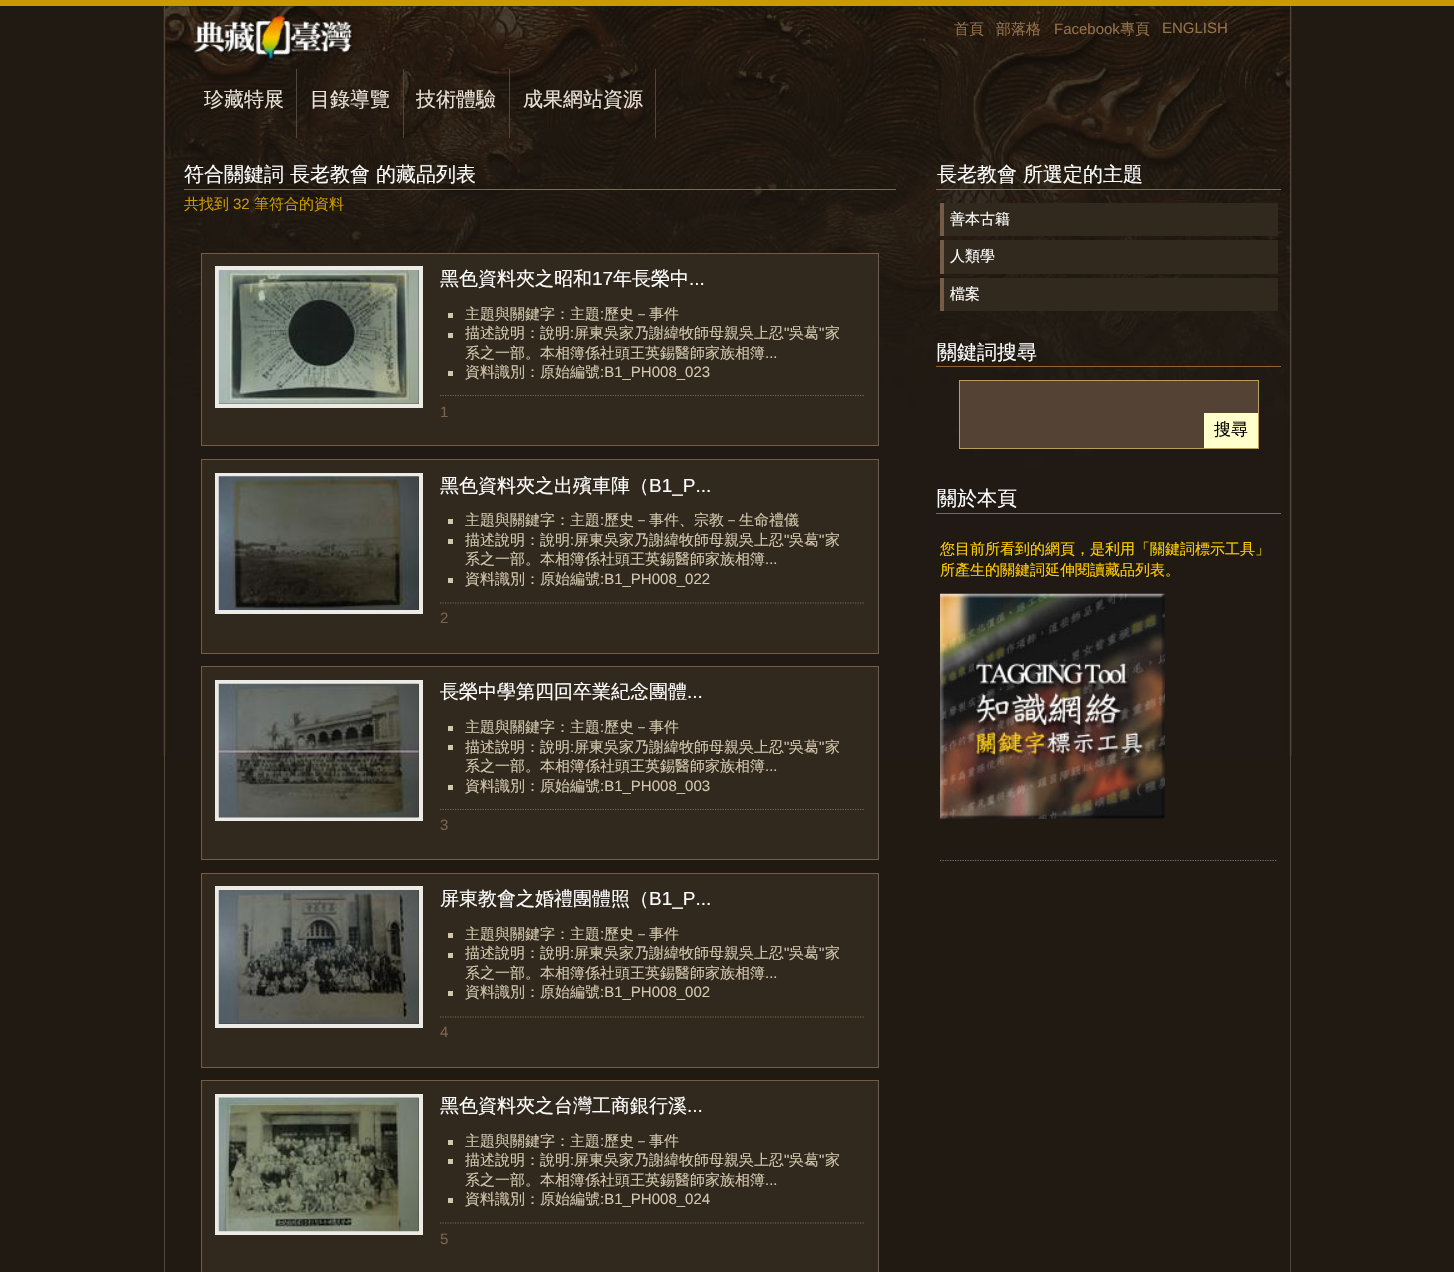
void draw(SkCanvas* canvas) {
  SkPaint paint;
  paint.setAntiAlias(true);
  auto face = [&](const char* family, int weight, float size, bool italic = false) {
    SkFontStyle style(weight, SkFontStyle::kNormal_Width,
      italic ? SkFontStyle::kItalic_Slant : SkFontStyle::kUpright_Slant);
    SkFont result(fontMgr->matchFamilyStyle(family, style), size);
    result.setSubpixel(true);
    return result;
  };
  auto paste = [&](const char* path, float x, float y, float w, float h) {
    auto image = SkImages::DeferredFromEncodedData(SkData::MakeFromFileName(path));
    canvas->drawImageRect(image, SkRect::MakeXYWH(x, y, w, h), SkSamplingOptions());
  };
  auto shape = [&](const char* data, bool evenOdd = false) {
    SkPath result = *SkParsePath::FromSVGString(data);
    if (evenOdd) result.setFillType(SkPathFillType::kEvenOdd);
    return result;
  };
  canvas->clear(0xff201a13);
  paste("img/1.png", 163, 6, 1129, 751);
  {
    const struct { float x, y, w, h; SkColor color; } items[] = {
      {0, 0, 1454, 6, 0xffcc9900},
      {1290, 6, 1, 125, 0xff544538},
      {164, 6, 1, 125, 0xff544538},
      {296, 69, 1, 69, 0xff544538},
      {403, 69, 1, 69, 0xff544538},
      {509, 69, 1, 69, 0xff544538},
      {655, 69, 1, 69, 0xff544538},
      {1290, 138, 1, 1134, 0xff544538},
      {164, 138, 1, 1134, 0xff544538},
      {184, 189, 712, 1, 0xff946432},
    };
    for (auto [x, y, w, h, color] : items) {
      paint.setColor(color);
      canvas->drawRect(SkRect::MakeXYWH(x, y, w, h), paint);
    }
  }
  paint.setColor(0xff31281e);
  canvas->drawRect(SkRect::MakeXYWH(201.5f, 253.5f, 677, 192), paint);
  paint.setStroke(true);
  paint.setStrokeWidth(1);
  paint.setColor(0xff765c47);
  canvas->drawRect(SkRect::MakeXYWH(201.5f, 253.5f, 677, 192), paint);
  paint.setStrokeWidth(4);
  paint.setColor(0xffecebe6);
  canvas->drawRect(SkRect::MakeXYWH(217, 268, 204, 138), paint);
  paste("img/2.png", 218, 270, 201, 134);
  paint.setStroke(false);
  {
    const struct { float x, y, w, h; SkColor color; } items[] = {
      {448, 313, 5, 5, 0xffd2c6ac},
      {448, 333, 5, 5, 0xffd2c6ac},
      {448, 371, 5, 5, 0xffd2c6ac},
    };
    for (auto [x, y, w, h, color] : items) {
      paint.setColor(color);
      canvas->drawRect(SkRect::MakeXYWH(x, y, w, h), paint);
    }
  }
  paint.setStroke(true);
  paint.setStrokeWidth(1.2f);
  paint.setColor(0xff7a644b);
  paint.setPathEffect(SkDashPathEffect::Make({{1.25f, 1.25f}}, 0));
  canvas->drawPath(shape("M440 395.5H865"), paint);
  paint.setPathEffect(nullptr);
  paint.setStroke(false);
  paint.setColor(0xff31281e);
  canvas->drawRect(SkRect::MakeXYWH(201.5f, 459.5f, 677, 194), paint);
  paint.setStroke(true);
  paint.setStrokeWidth(1);
  paint.setColor(0xff765c47);
  canvas->drawRect(SkRect::MakeXYWH(201.5f, 459.5f, 677, 194), paint);
  paint.setStrokeWidth(4);
  paint.setColor(0xffecebe6);
  canvas->drawRect(SkRect::MakeXYWH(217, 475, 204, 137), paint);
  paste("img/3.png", 218, 476, 201, 134);
  paint.setStroke(false);
  {
    const struct { float x, y, w, h; SkColor color; } items[] = {
      {448, 519, 5, 5, 0xffd2c6ac},
      {448, 539, 5, 5, 0xffd2c6ac},
      {448, 578, 5, 5, 0xffd2c6ac},
    };
    for (auto [x, y, w, h, color] : items) {
      paint.setColor(color);
      canvas->drawRect(SkRect::MakeXYWH(x, y, w, h), paint);
    }
  }
  paint.setStroke(true);
  paint.setStrokeWidth(1.2f);
  paint.setColor(0xff7a644b);
  paint.setPathEffect(SkDashPathEffect::Make({{1.25f, 1.25f}}, 0));
  canvas->drawPath(shape("M440 603H865"), paint);
  paint.setPathEffect(nullptr);
  paint.setStroke(false);
  paint.setColor(0xff31281e);
  canvas->drawRect(SkRect::MakeXYWH(201.5f, 666.5f, 677, 193), paint);
  paint.setStroke(true);
  paint.setStrokeWidth(1);
  paint.setColor(0xff765c47);
  canvas->drawRect(SkRect::MakeXYWH(201.5f, 666.5f, 677, 193), paint);
  paint.setStrokeWidth(4);
  paint.setColor(0xffecebe6);
  canvas->drawRect(SkRect::MakeXYWH(217, 682, 204, 137), paint);
  paste("img/4.png", 218, 683, 201, 135);
  paint.setStroke(false);
  {
    const struct { float x, y, w, h; SkColor color; } items[] = {
      {448, 726, 5, 5, 0xffd2c6ac},
      {448, 745, 5, 5, 0xffd2c6ac},
      {448, 785, 5, 5, 0xffd2c6ac},
    };
    for (auto [x, y, w, h, color] : items) {
      paint.setColor(color);
      canvas->drawRect(SkRect::MakeXYWH(x, y, w, h), paint);
    }
  }
  paint.setStroke(true);
  paint.setStrokeWidth(1.2f);
  paint.setColor(0xff7a644b);
  paint.setPathEffect(SkDashPathEffect::Make({{1.25f, 1.25f}}, 0));
  canvas->drawPath(shape("M440 809.5H865"), paint);
  paint.setPathEffect(nullptr);
  paint.setStroke(false);
  paint.setColor(0xff31281e);
  canvas->drawRect(SkRect::MakeXYWH(201.5f, 873.5f, 677, 194), paint);
  paint.setStroke(true);
  paint.setStrokeWidth(1);
  paint.setColor(0xff765c47);
  canvas->drawRect(SkRect::MakeXYWH(201.5f, 873.5f, 677, 194), paint);
  paint.setStrokeWidth(4);
  paint.setColor(0xffecebe6);
  canvas->drawRect(SkRect::MakeXYWH(217, 888, 204, 138), paint);
  paste("img/5.png", 218, 890, 201, 134);
  paint.setStroke(false);
  {
    const struct { float x, y, w, h; SkColor color; } items[] = {
      {448, 933, 5, 5, 0xffd2c6ac},
      {448, 953, 5, 5, 0xffd2c6ac},
      {448, 991, 5, 5, 0xffd2c6ac},
    };
    for (auto [x, y, w, h, color] : items) {
      paint.setColor(color);
      canvas->drawRect(SkRect::MakeXYWH(x, y, w, h), paint);
    }
  }
  paint.setStroke(true);
  paint.setStrokeWidth(1.2f);
  paint.setColor(0xff7a644b);
  paint.setPathEffect(SkDashPathEffect::Make({{1.25f, 1.25f}}, 0));
  canvas->drawPath(shape("M440 1017H865"), paint);
  paint.setPathEffect(nullptr);
  paint.setStroke(false);
  paint.setColor(0xff31281e);
  canvas->drawRect(SkRect::MakeXYWH(201.5f, 1080.5f, 677, 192), paint);
  paint.setStroke(true);
  paint.setStrokeWidth(1);
  paint.setColor(0xff765c47);
  canvas->drawRect(SkRect::MakeXYWH(201.5f, 1080.5f, 677, 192), paint);
  paint.setStrokeWidth(4);
  paint.setColor(0xffecebe6);
  canvas->drawRect(SkRect::MakeXYWH(217, 1096, 204, 137), paint);
  paste("img/6.png", 218, 1097, 201, 135);
  paint.setStroke(false);
  {
    const struct { float x, y, w, h; SkColor color; } items[] = {
      {448, 1140, 5, 5, 0xffd2c6ac},
      {448, 1159, 5, 5, 0xffd2c6ac},
      {448, 1198, 5, 5, 0xffd2c6ac},
    };
    for (auto [x, y, w, h, color] : items) {
      paint.setColor(color);
      canvas->drawRect(SkRect::MakeXYWH(x, y, w, h), paint);
    }
  }
  paint.setStroke(true);
  paint.setStrokeWidth(1.2f);
  paint.setColor(0xff7a644b);
  paint.setPathEffect(SkDashPathEffect::Make({{1.25f, 1.25f}}, 0));
  canvas->drawPath(shape("M440 1223H865"), paint);
  paint.setPathEffect(nullptr);
  paint.setStroke(false);
  {
    const struct { float x, y, w, h; SkColor color; } items[] = {
      {936, 189, 345, 1, 0xff946432},
      {944, 203, 334, 33, 0xff31281e},
      {940, 203, 4, 33, 0xff765c47},
      {944, 240, 334, 34, 0xff31281e},
      {940, 240, 4, 34, 0xff765c47},
      {944, 278, 334, 33, 0xff31281e},
      {940, 278, 4, 33, 0xff765c47},
      {936, 366, 345, 1, 0xff946432},
    };
    for (auto [x, y, w, h, color] : items) {
      paint.setColor(color);
      canvas->drawRect(SkRect::MakeXYWH(x, y, w, h), paint);
    }
  }
  paint.setColor(0xff544334);
  canvas->drawRect(SkRect::MakeXYWH(959.5f, 380.5f, 299, 68), paint);
  paint.setStroke(true);
  paint.setStrokeWidth(1);
  paint.setColor(0xffb99d5b);
  canvas->drawRect(SkRect::MakeXYWH(959.5f, 380.5f, 299, 68), paint);
  paint.setStroke(false);
  paint.setColor(0xffffffcc);
  canvas->drawRect(SkRect::MakeXYWH(1204, 413, 54, 35), paint);
  paint.setColor(0xff946432);
  canvas->drawRect(SkRect::MakeXYWH(936, 513, 345, 1), paint);
  paste("img/7.png", 940, 593, 225, 226);
  paint.setStroke(true);
  paint.setStrokeWidth(1.2f);
  paint.setColor(0xff707070);
  paint.setPathEffect(SkDashPathEffect::Make({{1.25f, 1.25f}}, 0));
  canvas->drawPath(shape("M940 860.5H1277.5"), paint);
  paint.setPathEffect(nullptr);
  auto f0 = face("WenQuanYi Zen Hei", 500, 15);
  paint.setStroke(false);
  paint.setColor(0xff947149);
  canvas->drawString("首頁", 954, 34, f0, paint);
  canvas->drawString("部落格", 996, 34, f0, paint);
  auto f1 = face("Liberation Sans", 400, 15);
  canvas->drawString("Facebook", 1054, 34, f1, paint);
  canvas->drawString("專頁", 1120, 34, f0, paint);
  canvas->drawString("ENGLISH", 1162, 33, f1, paint);
  auto f2 = face("WenQuanYi Zen Hei", 500, 20);
  paint.setColor(0xffe9e2d8);
  {
    const struct { const char* s; float x, y; } items[] = {
      {"珍藏特展", 204, 106},
      {"目錄導覽", 310, 106},
      {"技術體驗", 416, 106},
      {"成果網站資源", 523, 106},
    };
    for (auto [s, x, y] : items) {
      canvas->drawString(s, x, y, f2, paint);
    }
  }
  paint.setColor(0xffffffff);
  canvas->drawString("符合關鍵詞 長老教會 的藏品列表", 184, 181, f2, paint);
  paint.setColor(0xffcc9900);
  canvas->drawString("共找到", 184, 209, f0, paint);
  canvas->drawString("32", 233, 209, f1, paint);
  canvas->drawString("筆符合的資料", 254, 209, f0, paint);
  auto f3 = face("WenQuanYi Zen Hei", 500, 19);
  paint.setColor(0xffffffff);
  canvas->drawString("黑色資料夾之昭和", 440, 285, f3, paint);
  auto f4 = face("Liberation Sans", 400, 19);
  canvas->drawString("17", 592, 285, f4, paint);
  canvas->drawString("年長榮中", 613, 285, f3, paint);
  canvas->drawString("...", 689, 285, f4, paint);
  paint.setColor(0xffd2c6ac);
  canvas->drawString("主題與關鍵字：主題", 465, 319, f0, paint);
  canvas->drawString(":", 600, 319, f1, paint);
  {
    const struct { const char* s; float x, y; } items[] = {
      {"歷史－事件", 604, 319},
      {"描述說明：說明", 465, 338},
      {"屏東吳家乃謝緯牧師母親吳上忍", 574, 338},
    };
    for (auto [s, x, y] : items) {
      canvas->drawString(s, x, y, f0, paint);
    }
  }
  canvas->drawString("\"", 784, 338, f1, paint);
  canvas->drawString("吳葛", 789, 338, f0, paint);
  canvas->drawString("\"", 819, 338, f1, paint);
  canvas->drawString("家", 825, 338, f0, paint);
  canvas->drawString(":", 570, 338, f1, paint);
  canvas->drawString("系之一部。本相簿係社頭王英錫醫師家族相簿", 465, 358, f0, paint);
  canvas->drawString("...", 765, 358, f1, paint);
  canvas->drawString("資料識別：原始編號", 465, 377, f0, paint);
  canvas->drawString(":B1_PH008_023", 600, 377, f1, paint);
  paint.setColor(0xff7a644b);
  canvas->drawString("1", 440, 417, f1, paint);
  paint.setColor(0xffffffff);
  canvas->drawString("黑色資料夾之出殯車陣（", 440, 492, f3, paint);
  canvas->drawString("B1_P...", 649, 492, f4, paint);
  paint.setColor(0xffd2c6ac);
  canvas->drawString("主題與關鍵字：主題", 465, 525, f0, paint);
  canvas->drawString(":", 600, 525, f1, paint);
  {
    const struct { const char* s; float x, y; } items[] = {
      {"歷史－事件、宗教－生命禮儀", 604, 525},
      {"描述說明：說明", 465, 545},
      {"屏東吳家乃謝緯牧師母親吳上忍", 574, 545},
    };
    for (auto [s, x, y] : items) {
      canvas->drawString(s, x, y, f0, paint);
    }
  }
  canvas->drawString("\"", 784, 545, f1, paint);
  canvas->drawString("吳葛", 789, 545, f0, paint);
  canvas->drawString("\"", 819, 545, f1, paint);
  canvas->drawString("家", 825, 545, f0, paint);
  canvas->drawString(":", 570, 545, f1, paint);
  canvas->drawString("系之一部。本相簿係社頭王英錫醫師家族相簿", 465, 564, f0, paint);
  canvas->drawString("...", 765, 564, f1, paint);
  canvas->drawString("資料識別：原始編號", 465, 584, f0, paint);
  canvas->drawString(":B1_PH008_022", 600, 584, f1, paint);
  paint.setColor(0xff7a644b);
  canvas->drawString("2", 440, 623, f1, paint);
  paint.setColor(0xffffffff);
  canvas->drawString("長榮中學第四回卒業紀念團體", 440, 698, f3, paint);
  canvas->drawString("...", 687, 698, f4, paint);
  paint.setColor(0xffd2c6ac);
  canvas->drawString("主題與關鍵字：主題", 465, 732, f0, paint);
  canvas->drawString(":", 600, 732, f1, paint);
  {
    const struct { const char* s; float x, y; } items[] = {
      {"歷史－事件", 604, 732},
      {"描述說明：說明", 465, 752},
      {"屏東吳家乃謝緯牧師母親吳上忍", 574, 752},
    };
    for (auto [s, x, y] : items) {
      canvas->drawString(s, x, y, f0, paint);
    }
  }
  canvas->drawString("\"", 784, 752, f1, paint);
  canvas->drawString("吳葛", 789, 752, f0, paint);
  canvas->drawString("\"", 819, 752, f1, paint);
  canvas->drawString("家", 825, 752, f0, paint);
  canvas->drawString(":", 570, 752, f1, paint);
  canvas->drawString("系之一部。本相簿係社頭王英錫醫師家族相簿", 465, 771, f0, paint);
  canvas->drawString("...", 765, 771, f1, paint);
  canvas->drawString("資料識別：原始編號", 465, 791, f0, paint);
  canvas->drawString(":B1_PH008_003", 600, 791, f1, paint);
  paint.setColor(0xff7a644b);
  canvas->drawString("3", 440, 830, f1, paint);
  paint.setColor(0xffffffff);
  canvas->drawString("屏東教會之婚禮團體照（", 440, 905, f3, paint);
  canvas->drawString("B1_P...", 649, 905, f4, paint);
  paint.setColor(0xffd2c6ac);
  canvas->drawString("主題與關鍵字：主題", 465, 939, f0, paint);
  canvas->drawString(":", 600, 939, f1, paint);
  {
    const struct { const char* s; float x, y; } items[] = {
      {"歷史－事件", 604, 939},
      {"描述說明：說明", 465, 958},
      {"屏東吳家乃謝緯牧師母親吳上忍", 574, 958},
    };
    for (auto [s, x, y] : items) {
      canvas->drawString(s, x, y, f0, paint);
    }
  }
  canvas->drawString("\"", 784, 958, f1, paint);
  canvas->drawString("吳葛", 789, 958, f0, paint);
  canvas->drawString("\"", 819, 958, f1, paint);
  canvas->drawString("家", 825, 958, f0, paint);
  canvas->drawString(":", 570, 958, f1, paint);
  canvas->drawString("系之一部。本相簿係社頭王英錫醫師家族相簿", 465, 978, f0, paint);
  canvas->drawString("...", 765, 978, f1, paint);
  canvas->drawString("資料識別：原始編號", 465, 997, f0, paint);
  canvas->drawString(":B1_PH008_002", 600, 997, f1, paint);
  paint.setColor(0xff7a644b);
  canvas->drawString("4", 440, 1037, f1, paint);
  paint.setColor(0xffffffff);
  canvas->drawString("黑色資料夾之台灣工商銀行溪", 440, 1112, f3, paint);
  canvas->drawString("...", 687, 1112, f4, paint);
  paint.setColor(0xffd2c6ac);
  canvas->drawString("主題與關鍵字：主題", 465, 1146, f0, paint);
  canvas->drawString(":", 600, 1146, f1, paint);
  {
    const struct { const char* s; float x, y; } items[] = {
      {"歷史－事件", 604, 1146},
      {"描述說明：說明", 465, 1165},
      {"屏東吳家乃謝緯牧師母親吳上忍", 574, 1165},
    };
    for (auto [s, x, y] : items) {
      canvas->drawString(s, x, y, f0, paint);
    }
  }
  canvas->drawString("\"", 784, 1165, f1, paint);
  canvas->drawString("吳葛", 789, 1165, f0, paint);
  canvas->drawString("\"", 819, 1165, f1, paint);
  canvas->drawString("家", 825, 1165, f0, paint);
  canvas->drawString(":", 570, 1165, f1, paint);
  canvas->drawString("系之一部。本相簿係社頭王英錫醫師家族相簿", 465, 1185, f0, paint);
  canvas->drawString("...", 765, 1185, f1, paint);
  canvas->drawString("資料識別：原始編號", 465, 1204, f0, paint);
  canvas->drawString(":B1_PH008_024", 600, 1204, f1, paint);
  paint.setColor(0xff7a644b);
  canvas->drawString("5", 440, 1244, f1, paint);
  paint.setColor(0xffffffff);
  canvas->drawString("長老教會 所選定的主題", 937, 181, f2, paint);
  {
    const struct { const char* s; float x, y; } items[] = {
      {"善本古籍", 950, 224},
      {"人類學", 950, 261},
      {"檔案", 950, 299},
    };
    for (auto [s, x, y] : items) {
      canvas->drawString(s, x, y, f0, paint);
    }
  }
  canvas->drawString("關鍵詞搜尋", 937, 359, f2, paint);
  auto f5 = face("WenQuanYi Zen Hei", 500, 17);
  paint.setColor(0xff000000);
  canvas->drawString("搜尋", 1214, 435, f5, paint);
  paint.setColor(0xffffffff);
  canvas->drawString("關於本頁", 937, 505, f2, paint);
  paint.setColor(0xffffcc00);
  canvas->drawString("您目前所看到的網頁，是利用「關鍵詞標示工具」", 940, 554, f0, paint);
  canvas->drawString("所產生的關鍵詞延伸閱讀藏品列表。", 940, 575, f0, paint);
}
